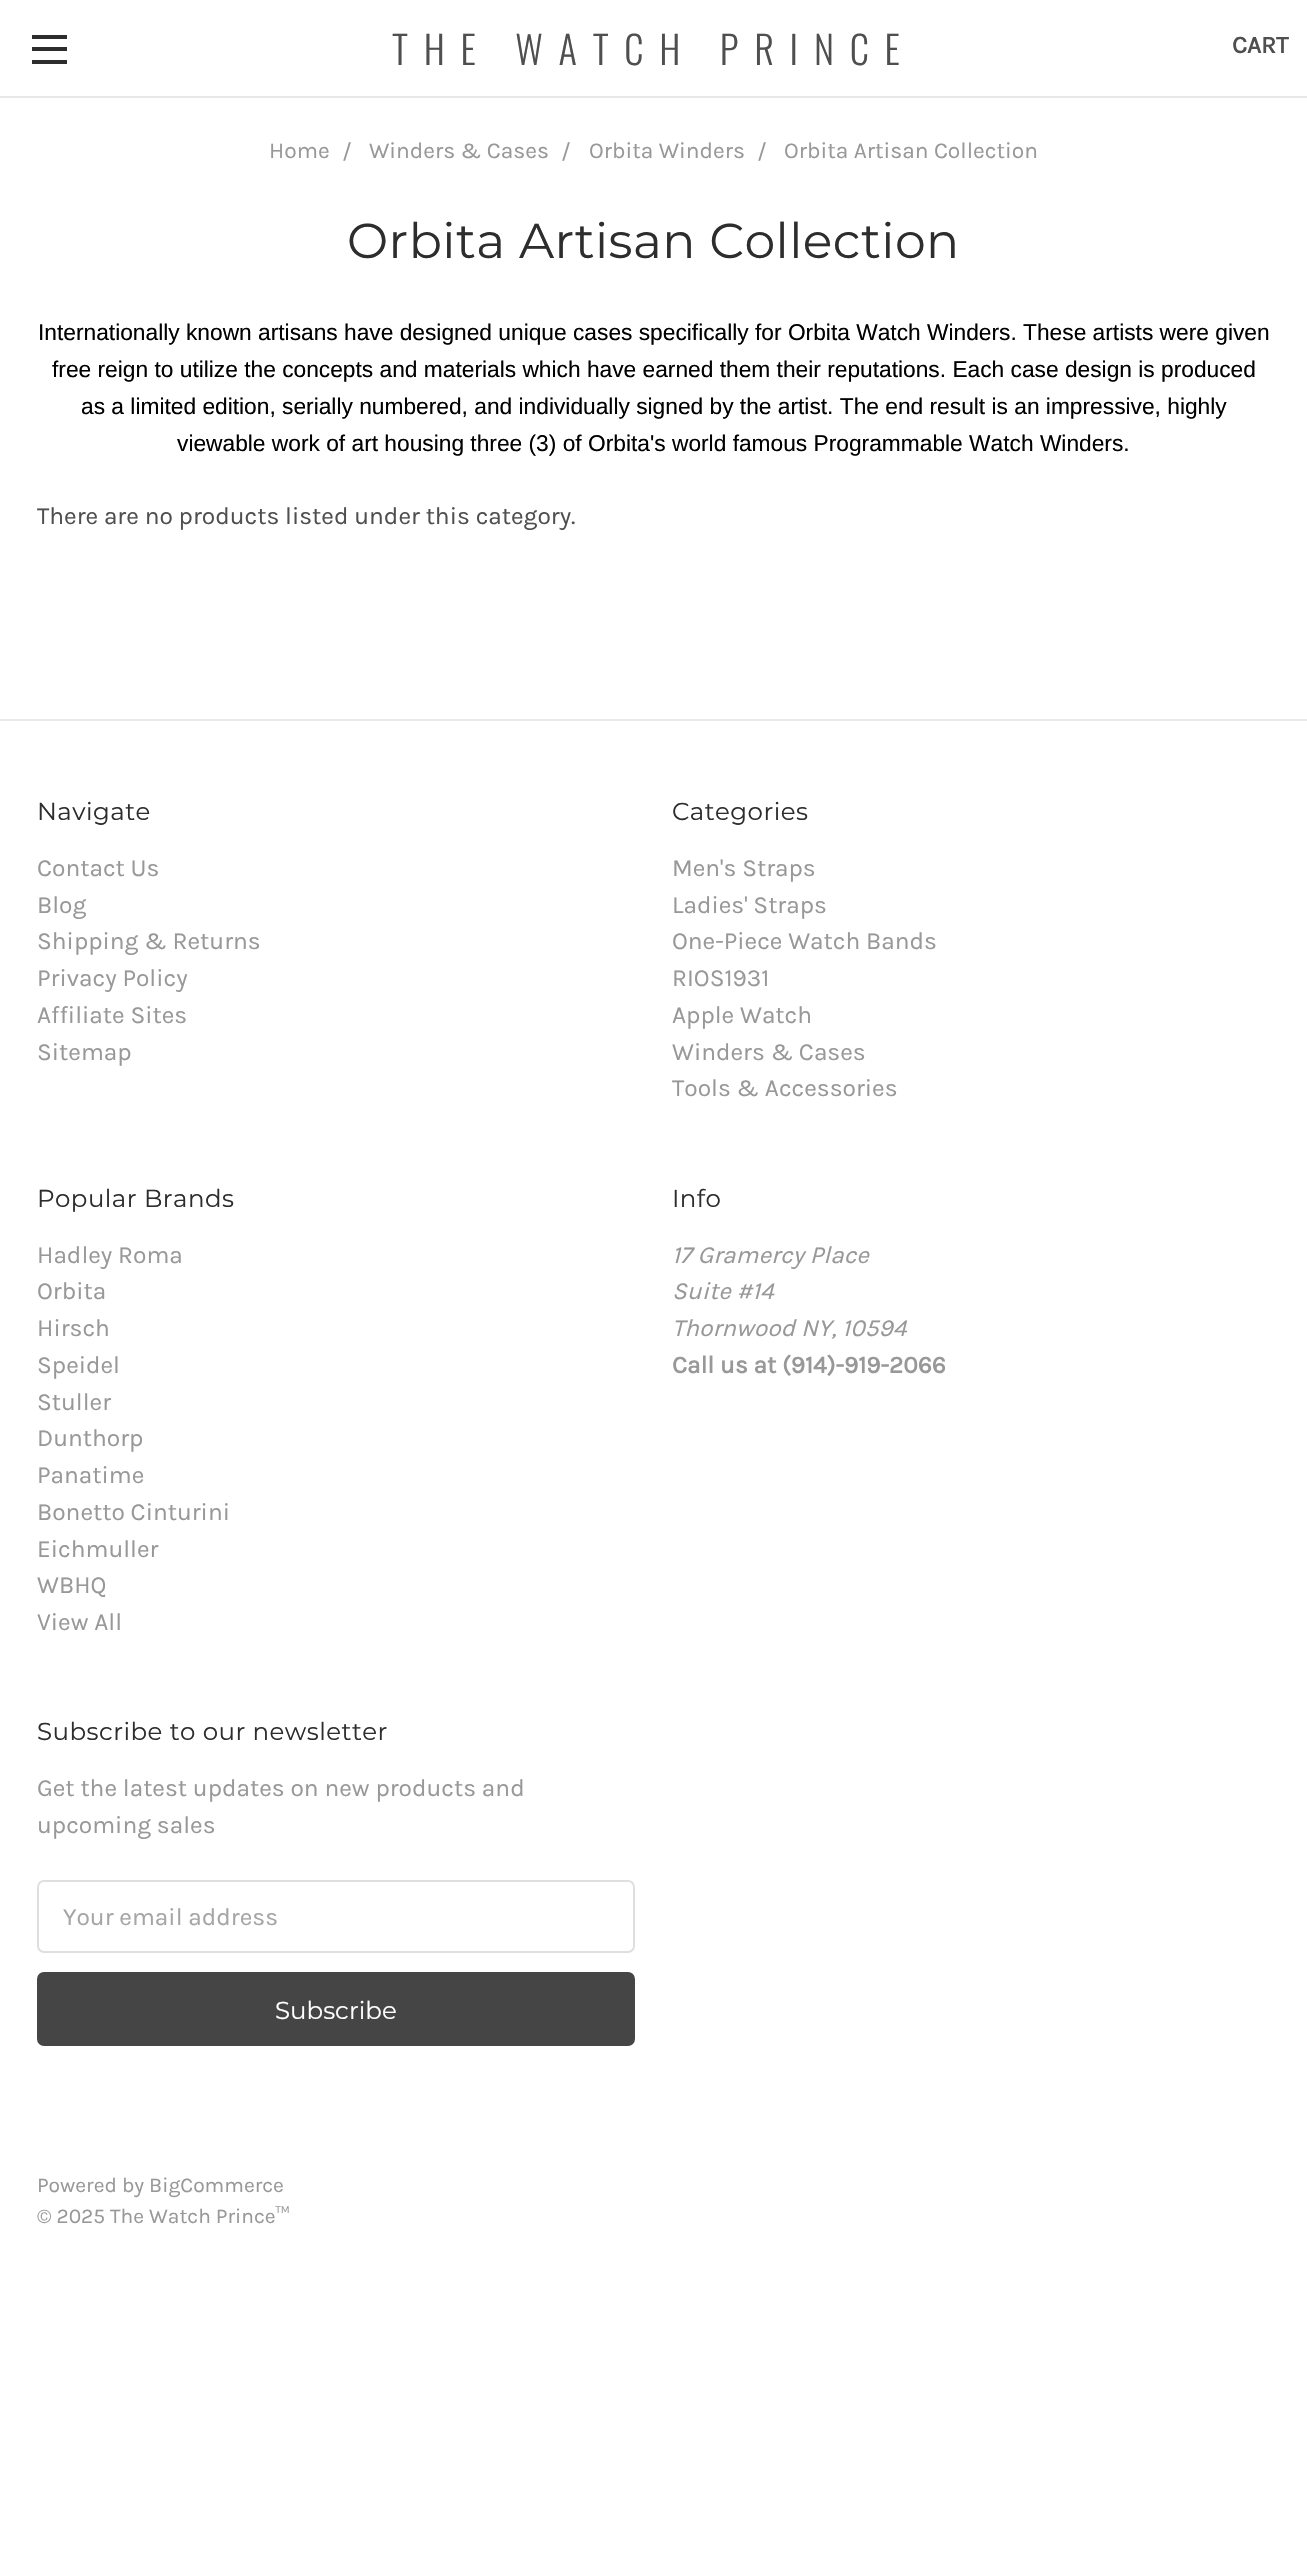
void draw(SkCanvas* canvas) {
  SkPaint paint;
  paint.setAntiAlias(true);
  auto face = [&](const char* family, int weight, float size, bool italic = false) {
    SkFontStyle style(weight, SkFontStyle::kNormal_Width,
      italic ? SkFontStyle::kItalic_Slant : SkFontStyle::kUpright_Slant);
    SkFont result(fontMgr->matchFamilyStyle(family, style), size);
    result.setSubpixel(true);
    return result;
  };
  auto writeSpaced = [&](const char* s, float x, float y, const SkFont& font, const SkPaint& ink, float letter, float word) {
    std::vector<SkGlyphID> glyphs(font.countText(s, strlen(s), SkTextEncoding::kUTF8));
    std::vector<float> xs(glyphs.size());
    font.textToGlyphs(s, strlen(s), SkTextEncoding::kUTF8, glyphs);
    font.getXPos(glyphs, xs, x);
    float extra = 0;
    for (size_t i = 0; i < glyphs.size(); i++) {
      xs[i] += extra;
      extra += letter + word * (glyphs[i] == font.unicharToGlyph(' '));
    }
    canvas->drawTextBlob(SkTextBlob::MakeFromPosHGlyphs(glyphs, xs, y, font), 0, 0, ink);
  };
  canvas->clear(0xffffffff);
  {
    const struct { float x, y, w, h; SkColor color; } items[] = {
      {0, 96, 1307, 2, 0xffe8e8e8},
      {32, 47, 35, 4, 0xff2d2d2d},
      {32, 35, 35, 4, 0xff2d2d2d},
      {32, 60, 35, 4, 0xff2d2d2d},
      {0, 719, 1307, 2, 0xffe8e8e8},
    };
    for (auto [x, y, w, h, color] : items) {
      paint.setColor(color);
      canvas->drawRect(SkRect::MakeXYWH(x, y, w, h), paint);
    }
  }
  paint.setStroke(true);
  paint.setStrokeWidth(2);
  paint.setColor(0xffdfdfdf);
  canvas->drawRoundRect(SkRect::MakeXYWH(38, 1881, 596, 71), 6, 6, paint);
  paint.setStroke(false);
  paint.setColor(0xff454545);
  canvas->drawRoundRect(SkRect::MakeXYWH(38, 1973, 596, 72), 6, 6, paint);
  paint.setStroke(true);
  canvas->drawRoundRect(SkRect::MakeXYWH(38, 1973, 596, 72), 6, 6, paint);
  auto f0 = face("Oswald", 300, 38.5f);
  paint.setStroke(false);
  paint.setColor(0xff4f4f4f);
  writeSpaced("THE WATCH PRINCE", 392, 65, f0, paint, 15.75f, 0);
  auto f1 = face("Karla", 700, 24.5f);
  canvas->drawString("CART", 1232, 53, f1, paint);
  auto f2 = face("Karla", 400, 22.75f);
  paint.setColor(0xff989898);
  {
    const struct { const char* s; float x, y; } items[] = {
      {"Home", 269, 158},
      {"/", 342, 159},
      {"Winders & Cases", 369, 158},
      {"/", 561, 159},
      {"Orbita Winders", 589, 158},
      {"/", 757, 159},
      {"Orbita Artisan Collection", 784, 158},
    };
    for (auto [s, x, y] : items) {
      canvas->drawString(s, x, y, f2, paint);
    }
  }
  auto f3 = face("Montserrat", 100, 49);
  paint.setColor(0xff2d2d2d);
  writeSpaced("Orbita Artisan Collection", 347, 258, f3, paint, 0.45f, 0);
  auto f4 = face("Liberation Sans", 400, 22.75f);
  paint.setColor(0xff000000);
  {
    const struct { const char* s; float x, y; } items[] = {
      {"Internationally known artisans have designed unique cases specifically for Orbita Watch Winders. These artists were given", 38, 340},
      {"free reign to utilize the concepts and materials which have earned them their reputations. Each case design is produced", 52, 377},
      {"as a limited edition, serially numbered, and individually signed by the artist. The end result is an impressive, highly", 81, 414},
      {"viewable work of art housing three (3) of Orbita's world famous Programmable Watch Winders.", 177, 451},
    };
    for (auto [s, x, y] : items) {
      canvas->drawString(s, x, y, f4, paint);
    }
  }
  auto f5 = face("Karla", 400, 24.5f);
  paint.setColor(0xff4f4f4f);
  canvas->drawString("There are no products listed under this category.", 37, 524, f5, paint);
  auto f6 = face("Montserrat", 100, 24.5f);
  paint.setColor(0xff2d2d2d);
  writeSpaced("Navigate", 37, 820, f6, paint, 0.45f, 0);
  paint.setColor(0xff989898);
  {
    const struct { const char* s; float x, y; } items[] = {
      {"Contact Us", 37, 876},
      {"Blog", 37, 913},
      {"Shipping & Returns", 37, 949},
      {"Privacy Policy", 37, 986},
      {"Affiliate Sites", 37, 1023},
      {"Sitemap", 37, 1060},
    };
    for (auto [s, x, y] : items) {
      canvas->drawString(s, x, y, f5, paint);
    }
  }
  paint.setColor(0xff2d2d2d);
  writeSpaced("Categories", 672, 820, f6, paint, 0.45f, 0);
  paint.setColor(0xff989898);
  {
    const struct { const char* s; float x, y; } items[] = {
      {"Men's Straps", 672, 876},
      {"Ladies' Straps", 672, 913},
      {"One-Piece Watch Bands", 672, 949},
      {"RIOS1931", 672, 986},
      {"Apple Watch", 672, 1023},
      {"Winders & Cases", 672, 1060},
      {"Tools & Accessories", 672, 1096},
    };
    for (auto [s, x, y] : items) {
      canvas->drawString(s, x, y, f5, paint);
    }
  }
  paint.setColor(0xff2d2d2d);
  writeSpaced("Popular Brands", 37, 1207, f6, paint, 0.45f, 0);
  paint.setColor(0xff989898);
  {
    const struct { const char* s; float x, y; } items[] = {
      {"Hadley Roma", 37, 1263},
      {"Orbita", 37, 1299},
      {"Hirsch", 37, 1336},
      {"Speidel", 37, 1373},
      {"Stuller", 37, 1410},
      {"Dunthorp", 37, 1446},
      {"Panatime", 37, 1483},
      {"Bonetto Cinturini", 37, 1520},
      {"Eichmuller", 37, 1557},
      {"WBHQ", 37, 1593},
      {"View All", 37, 1630},
    };
    for (auto [s, x, y] : items) {
      canvas->drawString(s, x, y, f5, paint);
    }
  }
  paint.setColor(0xff2d2d2d);
  writeSpaced("Info", 672, 1207, f6, paint, 0.45f, 0);
  auto f7 = face("Karla", 400, 24.5f, true);
  paint.setColor(0xff989898);
  {
    const struct { const char* s; float x, y; } items[] = {
      {"17 Gramercy Place", 672, 1263},
      {"Suite #14", 672, 1299},
      {"Thornwood NY, 10594", 672, 1336},
    };
    for (auto [s, x, y] : items) {
      canvas->drawString(s, x, y, f7, paint);
    }
  }
  canvas->drawString("Call us at (914)-919-2066", 672, 1373, f1, paint);
  paint.setColor(0xff2d2d2d);
  writeSpaced("Subscribe to our newsletter", 37, 1740, f6, paint, 0.45f, 0);
  paint.setColor(0xff989898);
  canvas->drawString("Get the latest updates on new products and", 37, 1796, f5, paint);
  canvas->drawString("upcoming sales", 37, 1833, f5, paint);
  paint.setColor(0xffa5a5a5);
  canvas->drawString("Your email address", 63, 1925, f5, paint);
  paint.setColor(0xffffffff);
  canvas->drawString("Subscribe", 275, 2019, f6, paint);
  auto f8 = face("Karla", 400, 21);
  paint.setColor(0xff989898);
  canvas->drawString("Powered by BigCommerce", 37, 2192, f8, paint);
  canvas->drawString("© 2025 The Watch Prince™", 37, 2223, f8, paint);
}
